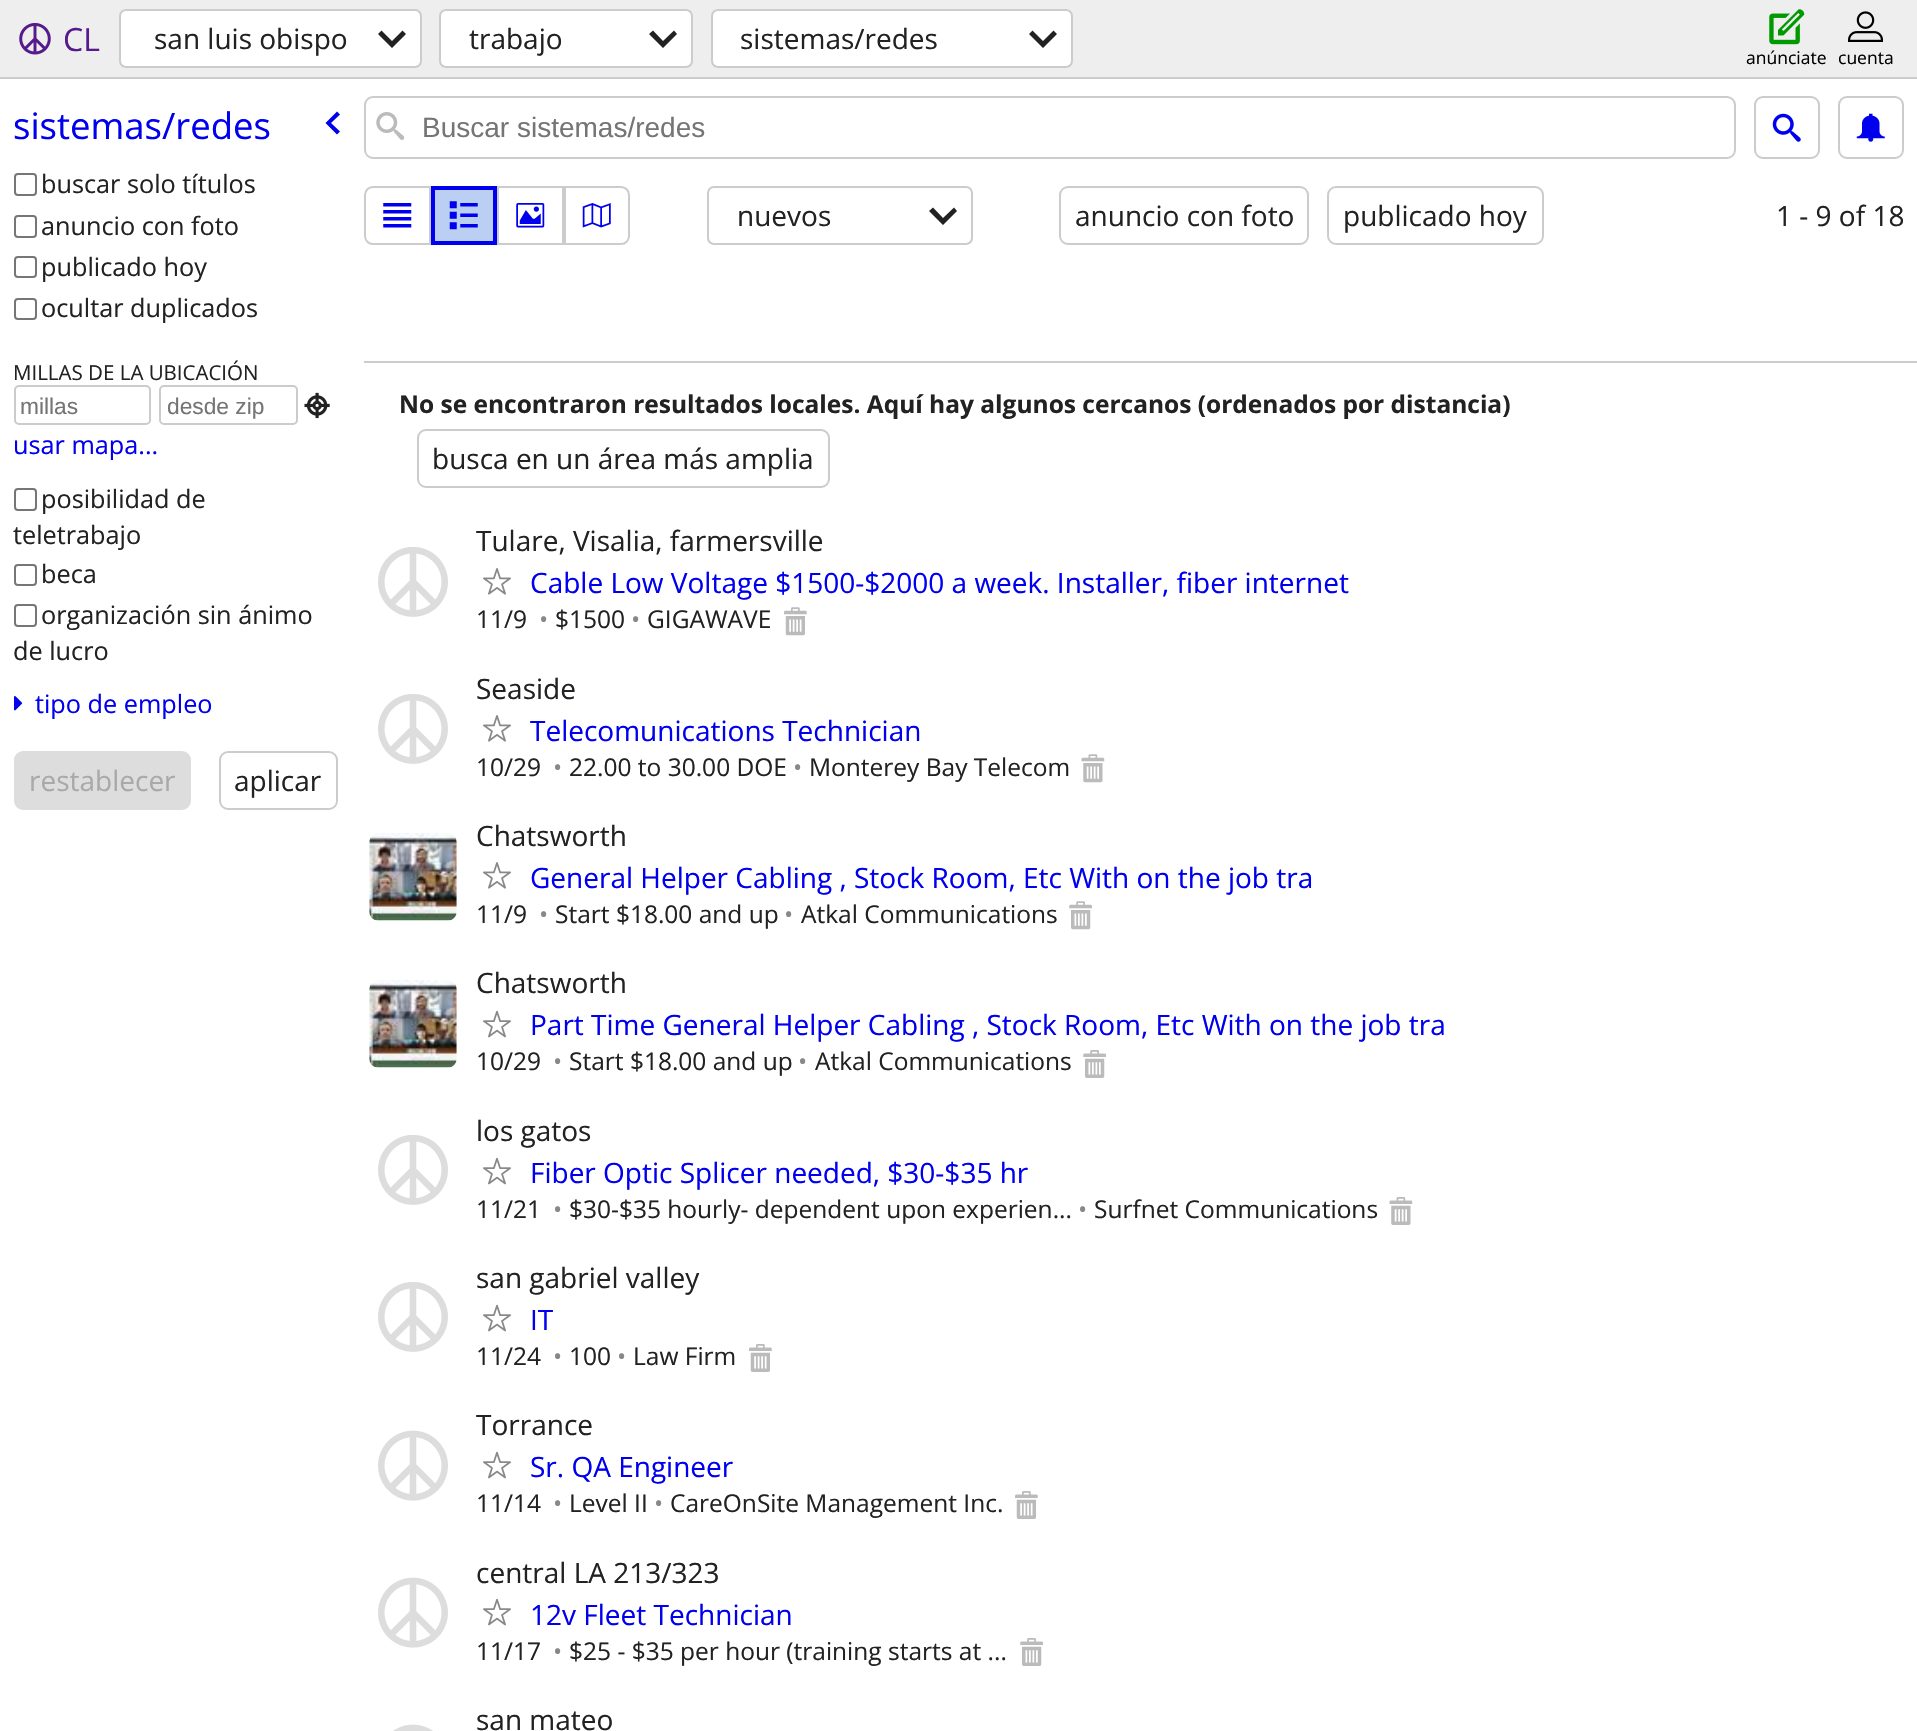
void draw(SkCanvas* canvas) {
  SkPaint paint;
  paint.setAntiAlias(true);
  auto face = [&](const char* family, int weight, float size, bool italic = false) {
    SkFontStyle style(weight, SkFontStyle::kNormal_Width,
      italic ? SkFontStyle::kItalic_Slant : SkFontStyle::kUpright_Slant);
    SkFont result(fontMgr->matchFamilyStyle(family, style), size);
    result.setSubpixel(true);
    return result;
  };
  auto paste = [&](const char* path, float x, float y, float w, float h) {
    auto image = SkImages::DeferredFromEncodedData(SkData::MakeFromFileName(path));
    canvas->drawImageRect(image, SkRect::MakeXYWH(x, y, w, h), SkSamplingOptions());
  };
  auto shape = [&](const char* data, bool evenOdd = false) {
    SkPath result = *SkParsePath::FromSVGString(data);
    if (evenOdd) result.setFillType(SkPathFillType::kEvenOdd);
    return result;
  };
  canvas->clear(0xffffffff);
  paint.setColor(0xffeeeeee);
  canvas->drawRect(SkRect::MakeXYWH(0, 0, 1917, 77), paint);
  paint.setColor(0xffcccccc);
  canvas->drawRect(SkRect::MakeXYWH(0, 77, 1917, 2), paint);
  paste("img/1.png", 19, 23, 32, 32);
  paint.setColor(0xffffffff);
  canvas->drawRoundRect(SkRect::MakeXYWH(120, 10, 301, 57), 6, 6, paint);
  paint.setStroke(true);
  paint.setStrokeWidth(2);
  paint.setColor(0xffcccccc);
  canvas->drawRoundRect(SkRect::MakeXYWH(120, 10, 301, 57), 6, 6, paint);
  paint.setStroke(false);
  paint.setColor(0xff222222);
  canvas->drawPath(shape("M406 34L402.5 30.5L392 41L381.5 30.5L378 34L392 48Z"), paint);
  paint.setColor(0xffffffff);
  canvas->drawRoundRect(SkRect::MakeXYWH(440, 10, 252, 57), 6, 6, paint);
  paint.setStroke(true);
  paint.setColor(0xffcccccc);
  canvas->drawRoundRect(SkRect::MakeXYWH(440, 10, 252, 57), 6, 6, paint);
  paint.setStroke(false);
  paint.setColor(0xff222222);
  canvas->drawPath(shape("M677 34L674 30.5L663 41L653 30.5L649 34L663 48Z"), paint);
  paint.setColor(0xffffffff);
  canvas->drawRoundRect(SkRect::MakeXYWH(712, 10, 360, 57), 6, 6, paint);
  paint.setStroke(true);
  paint.setColor(0xffcccccc);
  canvas->drawRoundRect(SkRect::MakeXYWH(712, 10, 360, 57), 6, 6, paint);
  paint.setStroke(false);
  paint.setColor(0xff222222);
  canvas->drawPath(shape("M1057 34L1053.5 30.5L1043 41L1032.5 30.5L1029 34L1043 48Z"), paint);
  paste("img/2.png", 1769, 9, 36, 36);
  paste("img/3.png", 1848, 11, 35, 31);
  paint.setColor(0xff0000ee);
  canvas->drawPath(shape("M337 134.5L340 131.5L331 123L340 114.5L337 111.5L325.5 123Z"), paint);
  paint.setStroke(true);
  paint.setColor(0xff767676);
  canvas->drawRoundRect(SkRect::MakeXYWH(15, 174, 21, 21), 3, 3, paint);
  canvas->drawRoundRect(SkRect::MakeXYWH(15, 216, 21, 21), 3, 3, paint);
  canvas->drawRoundRect(SkRect::MakeXYWH(15, 257, 21, 20), 3, 3, paint);
  canvas->drawRoundRect(SkRect::MakeXYWH(15, 299, 21, 20), 3, 3, paint);
  paint.setColor(0xffcccccc);
  canvas->drawRoundRect(SkRect::MakeXYWH(15, 386, 135, 38), 4, 4, paint);
  canvas->drawRoundRect(SkRect::MakeXYWH(160, 386, 137, 38), 4, 4, paint);
  paste("img/4.png", 304, 392, 26, 27);
  paint.setColor(0xff767676);
  canvas->drawRoundRect(SkRect::MakeXYWH(15, 489, 21, 21), 3, 3, paint);
  canvas->drawRoundRect(SkRect::MakeXYWH(15, 565, 21, 20), 3, 3, paint);
  canvas->drawRoundRect(SkRect::MakeXYWH(15, 605, 21, 21), 3, 3, paint);
  paste("img/5.png", 14, 696, 9, 15);
  paint.setStroke(false);
  paint.setColor(0xffdddddd);
  canvas->drawRoundRect(SkRect::MakeXYWH(15, 752, 175, 57), 8, 8, paint);
  paint.setStroke(true);
  canvas->drawRoundRect(SkRect::MakeXYWH(15, 752, 175, 57), 8, 8, paint);
  paint.setColor(0xffcccccc);
  canvas->drawRoundRect(SkRect::MakeXYWH(220, 752, 117, 57), 8, 8, paint);
  canvas->drawRoundRect(SkRect::MakeXYWH(365, 97, 1370, 61), 8, 8, paint);
  paste("img/6.png", 376, 112, 29, 28);
  canvas->drawRoundRect(SkRect::MakeXYWH(1755, 97, 64, 61), 8, 8, paint);
  paste("img/7.png", 1772, 113, 29, 29);
  canvas->drawRoundRect(SkRect::MakeXYWH(1839, 97, 64, 61), 8, 8, paint);
  paste("img/8.png", 1856, 113, 29, 29);
  canvas->drawPath(shape("M373 187H430V244H373C368.5 244 365 240.5 365 236V195C365 190.5 368.5 187 373 187Z"), paint);
  paste("img/9.png", 383, 203, 29, 25);
  paint.setStroke(false);
  paint.setColor(0xffbacff2);
  canvas->drawRect(SkRect::MakeXYWH(433, 188, 62, 55), paint);
  paint.setStroke(true);
  paint.setStrokeWidth(4);
  paint.setColor(0xff0000ee);
  canvas->drawRect(SkRect::MakeXYWH(433, 188, 62, 55), paint);
  paste("img/10.png", 449, 201, 29, 29);
  paint.setStrokeWidth(2);
  paint.setColor(0xffcccccc);
  canvas->drawRect(SkRect::MakeXYWH(498, 187, 65, 57), paint);
  paste("img/11.png", 516, 203, 29, 25);
  canvas->drawPath(shape("M565 187H621C625.5 187 629 190.5 629 195V236C629 240.5 625.5 244 621 244H565Z"), paint);
  paste("img/12.png", 582, 203, 29, 25);
  canvas->drawRoundRect(SkRect::MakeXYWH(708, 187, 264, 57), 6, 6, paint);
  paint.setStroke(false);
  paint.setColor(0xff222222);
  canvas->drawPath(shape("M957 211L954 207.5L943 218L933 207.5L929 211L943 225Z"), paint);
  paint.setStroke(true);
  paint.setColor(0xffcccccc);
  canvas->drawRoundRect(SkRect::MakeXYWH(1060, 187, 248, 57), 8, 8, paint);
  canvas->drawRoundRect(SkRect::MakeXYWH(1328, 187, 215, 57), 8, 8, paint);
  paint.setStroke(false);
  canvas->drawRect(SkRect::MakeXYWH(364, 361, 1553, 2), paint);
  paint.setStroke(true);
  canvas->drawRoundRect(SkRect::MakeXYWH(418, 430, 411, 57), 8, 8, paint);
  paste("img/13.png", 378, 547, 70, 70);
  paste("img/14.png", 483, 568, 28, 27);
  paste("img/15.png", 784, 607, 23, 29);
  paste("img/13.png", 378, 694, 70, 70);
  paste("img/14.png", 483, 715, 28, 27);
  paste("img/16.png", 1081, 754, 24, 29);
  paste("img/17.png", 369, 833, 88, 88);
  paste("img/14.png", 483, 862, 28, 27);
  paste("img/18.png", 1069, 901, 23, 29);
  paste("img/17.png", 369, 980, 88, 88);
  paste("img/19.png", 483, 1010, 28, 28);
  paste("img/20.png", 1083, 1050, 23, 28);
  paste("img/13.png", 378, 1135, 70, 70);
  paste("img/19.png", 483, 1157, 28, 28);
  paste("img/21.png", 1389, 1197, 24, 28);
  paste("img/13.png", 378, 1282, 70, 70);
  paste("img/19.png", 483, 1304, 28, 28);
  paste("img/22.png", 749, 1344, 23, 28);
  paste("img/23.png", 378, 1430, 70, 71);
  paste("img/19.png", 483, 1451, 28, 28);
  paste("img/22.png", 1015, 1491, 23, 28);
  paste("img/23.png", 378, 1577, 70, 71);
  paste("img/19.png", 483, 1598, 28, 28);
  paste("img/20.png", 1020, 1638, 23, 28);
  paste("img/24.png", 393, 1724, 40, 7);
  auto f0 = face("Open Sans", 400, 32);
  paint.setStroke(false);
  paint.setColor(0xff551a8b);
  canvas->drawString("CL", 63, 51, f0, paint);
  auto f1 = face("Open Sans", 400, 28);
  paint.setColor(0xff222222);
  {
    const struct { const char* s; float x, y; } items[] = {
      {"san luis obispo", 154, 49},
      {"trabajo", 469, 49},
      {"sistemas/redes", 740, 49},
    };
    for (auto [s, x, y] : items) {
      canvas->drawString(s, x, y, f1, paint);
    }
  }
  auto f2 = face("Open Sans", 400, 17.5f);
  paint.setColor(0xff000000);
  canvas->drawString("anúnciate", 1746, 64, f2, paint);
  canvas->drawString("cuenta", 1838, 64, f2, paint);
  auto f3 = face("Open Sans", 400, 36.5f);
  paint.setColor(0xff0000ee);
  canvas->drawString("sistemas/redes", 13, 139, f3, paint);
  auto f4 = face("Open Sans", 400, 25.25f);
  paint.setColor(0xff222222);
  {
    const struct { const char* s; float x, y; } items[] = {
      {"buscar solo títulos", 41, 193},
      {"anuncio con foto", 41, 235},
      {"publicado hoy", 41, 276},
      {"ocultar duplicados", 41, 317},
    };
    for (auto [s, x, y] : items) {
      canvas->drawString(s, x, y, f4, paint);
    }
  }
  auto f5 = face("Open Sans", 400, 20.5f);
  canvas->drawString("MILLAS DE LA UBICACIÓN", 13, 380, f5, paint);
  auto f6 = face("Liberation Sans", 400, 22.75f);
  paint.setColor(0xff757575);
  canvas->drawString("millas", 20, 414, f6, paint);
  canvas->drawString("desde zip", 167, 414, f6, paint);
  paint.setColor(0xff0000ee);
  canvas->drawString("usar mapa...", 13, 454, f4, paint);
  paint.setColor(0xff222222);
  {
    const struct { const char* s; float x, y; } items[] = {
      {"posibilidad de", 41, 508},
      {"teletrabajo", 13, 544},
      {"beca", 41, 583},
      {"organización sin ánimo", 41, 624},
      {"de lucro", 13, 660},
    };
    for (auto [s, x, y] : items) {
      canvas->drawString(s, x, y, f4, paint);
    }
  }
  paint.setColor(0xff0000ee);
  canvas->drawString("tipo de empleo", 35, 713, f4, paint);
  paint.setColor(0xffa9a9a9);
  canvas->drawString("restablecer", 29, 791, f1, paint);
  paint.setColor(0xff222222);
  canvas->drawString("aplicar", 234, 791, f1, paint);
  auto f7 = face("Liberation Sans", 400, 28);
  paint.setColor(0xff757575);
  canvas->drawString("Buscar sistemas/redes", 422, 137, f7, paint);
  paint.setColor(0xff222222);
  {
    const struct { const char* s; float x, y; } items[] = {
      {"nuevos", 737, 226},
      {"anuncio con foto", 1075, 226},
      {"publicado hoy", 1343, 226},
      {"1 - 9 of 18", 1776, 226},
    };
    for (auto [s, x, y] : items) {
      canvas->drawString(s, x, y, f1, paint);
    }
  }
  auto f8 = face("Open Sans", 700, 24.5f);
  canvas->drawString("No se encontraron resultados locales. Aquí hay algunos cercanos (ordenados por distancia)", 399, 413, f8, paint);
  canvas->drawString("busca en un área más amplia", 432, 469, f1, paint);
  canvas->drawString("Tulare, Visalia, farmersville", 476, 551, f1, paint);
  paint.setColor(0xff0000ee);
  canvas->drawString("Cable Low Voltage $1500-$2000 a week. Installer, fiber internet", 530, 593, f1, paint);
  auto f9 = face("Open Sans", 400, 24.5f);
  paint.setColor(0xff222222);
  canvas->drawString("11/9", 476, 628, f9, paint);
  paint.setColor(0xff888888);
  canvas->drawString("•", 539, 628, f9, paint);
  paint.setColor(0xff222222);
  canvas->drawString("$1500", 555, 628, f9, paint);
  paint.setColor(0xff888888);
  canvas->drawString("•", 631, 628, f9, paint);
  paint.setColor(0xff222222);
  canvas->drawString("GIGAWAVE", 647, 628, f9, paint);
  canvas->drawString("Seaside", 476, 699, f1, paint);
  paint.setColor(0xff0000ee);
  canvas->drawString("Telecomunications Technician", 530, 741, f1, paint);
  paint.setColor(0xff222222);
  canvas->drawString("10/29", 476, 776, f9, paint);
  paint.setColor(0xff888888);
  canvas->drawString("•", 553, 776, f9, paint);
  paint.setColor(0xff222222);
  canvas->drawString("22.00 to 30.00 DOE", 569, 776, f9, paint);
  paint.setColor(0xff888888);
  canvas->drawString("•", 793, 776, f9, paint);
  paint.setColor(0xff222222);
  canvas->drawString("Monterey Bay Telecom", 809, 776, f9, paint);
  canvas->drawString("Chatsworth", 476, 846, f1, paint);
  paint.setColor(0xff0000ee);
  canvas->drawString("General Helper Cabling , Stock Room, Etc With on the job tra", 530, 888, f1, paint);
  paint.setColor(0xff222222);
  canvas->drawString("11/9", 476, 923, f9, paint);
  paint.setColor(0xff888888);
  canvas->drawString("•", 539, 923, f9, paint);
  paint.setColor(0xff222222);
  canvas->drawString("Start $18.00 and up", 555, 923, f9, paint);
  paint.setColor(0xff888888);
  canvas->drawString("•", 784, 923, f9, paint);
  paint.setColor(0xff222222);
  canvas->drawString("Atkal Communications", 801, 923, f9, paint);
  canvas->drawString("Chatsworth", 476, 993, f1, paint);
  paint.setColor(0xff0000ee);
  canvas->drawString("Part Time General Helper Cabling , Stock Room, Etc With on the job tra", 530, 1035, f1, paint);
  paint.setColor(0xff222222);
  canvas->drawString("10/29", 476, 1070, f9, paint);
  paint.setColor(0xff888888);
  canvas->drawString("•", 553, 1070, f9, paint);
  paint.setColor(0xff222222);
  canvas->drawString("Start $18.00 and up", 569, 1070, f9, paint);
  paint.setColor(0xff888888);
  canvas->drawString("•", 798, 1070, f9, paint);
  paint.setColor(0xff222222);
  canvas->drawString("Atkal Communications", 815, 1070, f9, paint);
  canvas->drawString("los gatos", 476, 1141, f1, paint);
  paint.setColor(0xff0000ee);
  canvas->drawString("Fiber Optic Splicer needed, $30-$35 hr", 530, 1183, f1, paint);
  paint.setColor(0xff222222);
  canvas->drawString("11/21", 476, 1218, f9, paint);
  paint.setColor(0xff888888);
  canvas->drawString("•", 553, 1218, f9, paint);
  paint.setColor(0xff222222);
  canvas->drawString("$30-$35 hourly- dependent upon experien...", 569, 1218, f9, paint);
  paint.setColor(0xff888888);
  canvas->drawString("•", 1078, 1218, f9, paint);
  paint.setColor(0xff222222);
  canvas->drawString("Surfnet Communications", 1094, 1218, f9, paint);
  canvas->drawString("san gabriel valley", 476, 1288, f1, paint);
  paint.setColor(0xff0000ee);
  canvas->drawString("IT", 530, 1330, f1, paint);
  paint.setColor(0xff222222);
  canvas->drawString("11/24", 476, 1365, f9, paint);
  paint.setColor(0xff888888);
  canvas->drawString("•", 553, 1365, f9, paint);
  paint.setColor(0xff222222);
  canvas->drawString("100", 569, 1365, f9, paint);
  paint.setColor(0xff888888);
  canvas->drawString("•", 617, 1365, f9, paint);
  paint.setColor(0xff222222);
  canvas->drawString("Law Firm", 633, 1365, f9, paint);
  canvas->drawString("Torrance", 476, 1435, f1, paint);
  paint.setColor(0xff0000ee);
  canvas->drawString("Sr. QA Engineer", 530, 1477, f1, paint);
  paint.setColor(0xff222222);
  canvas->drawString("11/14", 476, 1512, f9, paint);
  paint.setColor(0xff888888);
  canvas->drawString("•", 553, 1512, f9, paint);
  paint.setColor(0xff222222);
  canvas->drawString("Level II", 569, 1512, f9, paint);
  paint.setColor(0xff888888);
  canvas->drawString("•", 654, 1512, f9, paint);
  paint.setColor(0xff222222);
  canvas->drawString("CareOnSite Management Inc.", 670, 1512, f9, paint);
  canvas->drawString("central LA 213/323", 476, 1583, f1, paint);
  paint.setColor(0xff0000ee);
  canvas->drawString("12v Fleet Technician", 530, 1625, f1, paint);
  paint.setColor(0xff222222);
  canvas->drawString("11/17", 476, 1660, f9, paint);
  paint.setColor(0xff888888);
  canvas->drawString("•", 553, 1660, f9, paint);
  paint.setColor(0xff222222);
  canvas->drawString("$25 - $35 per hour (training starts at ...", 569, 1660, f9, paint);
  canvas->drawString("san mateo", 476, 1730, f1, paint);
}
